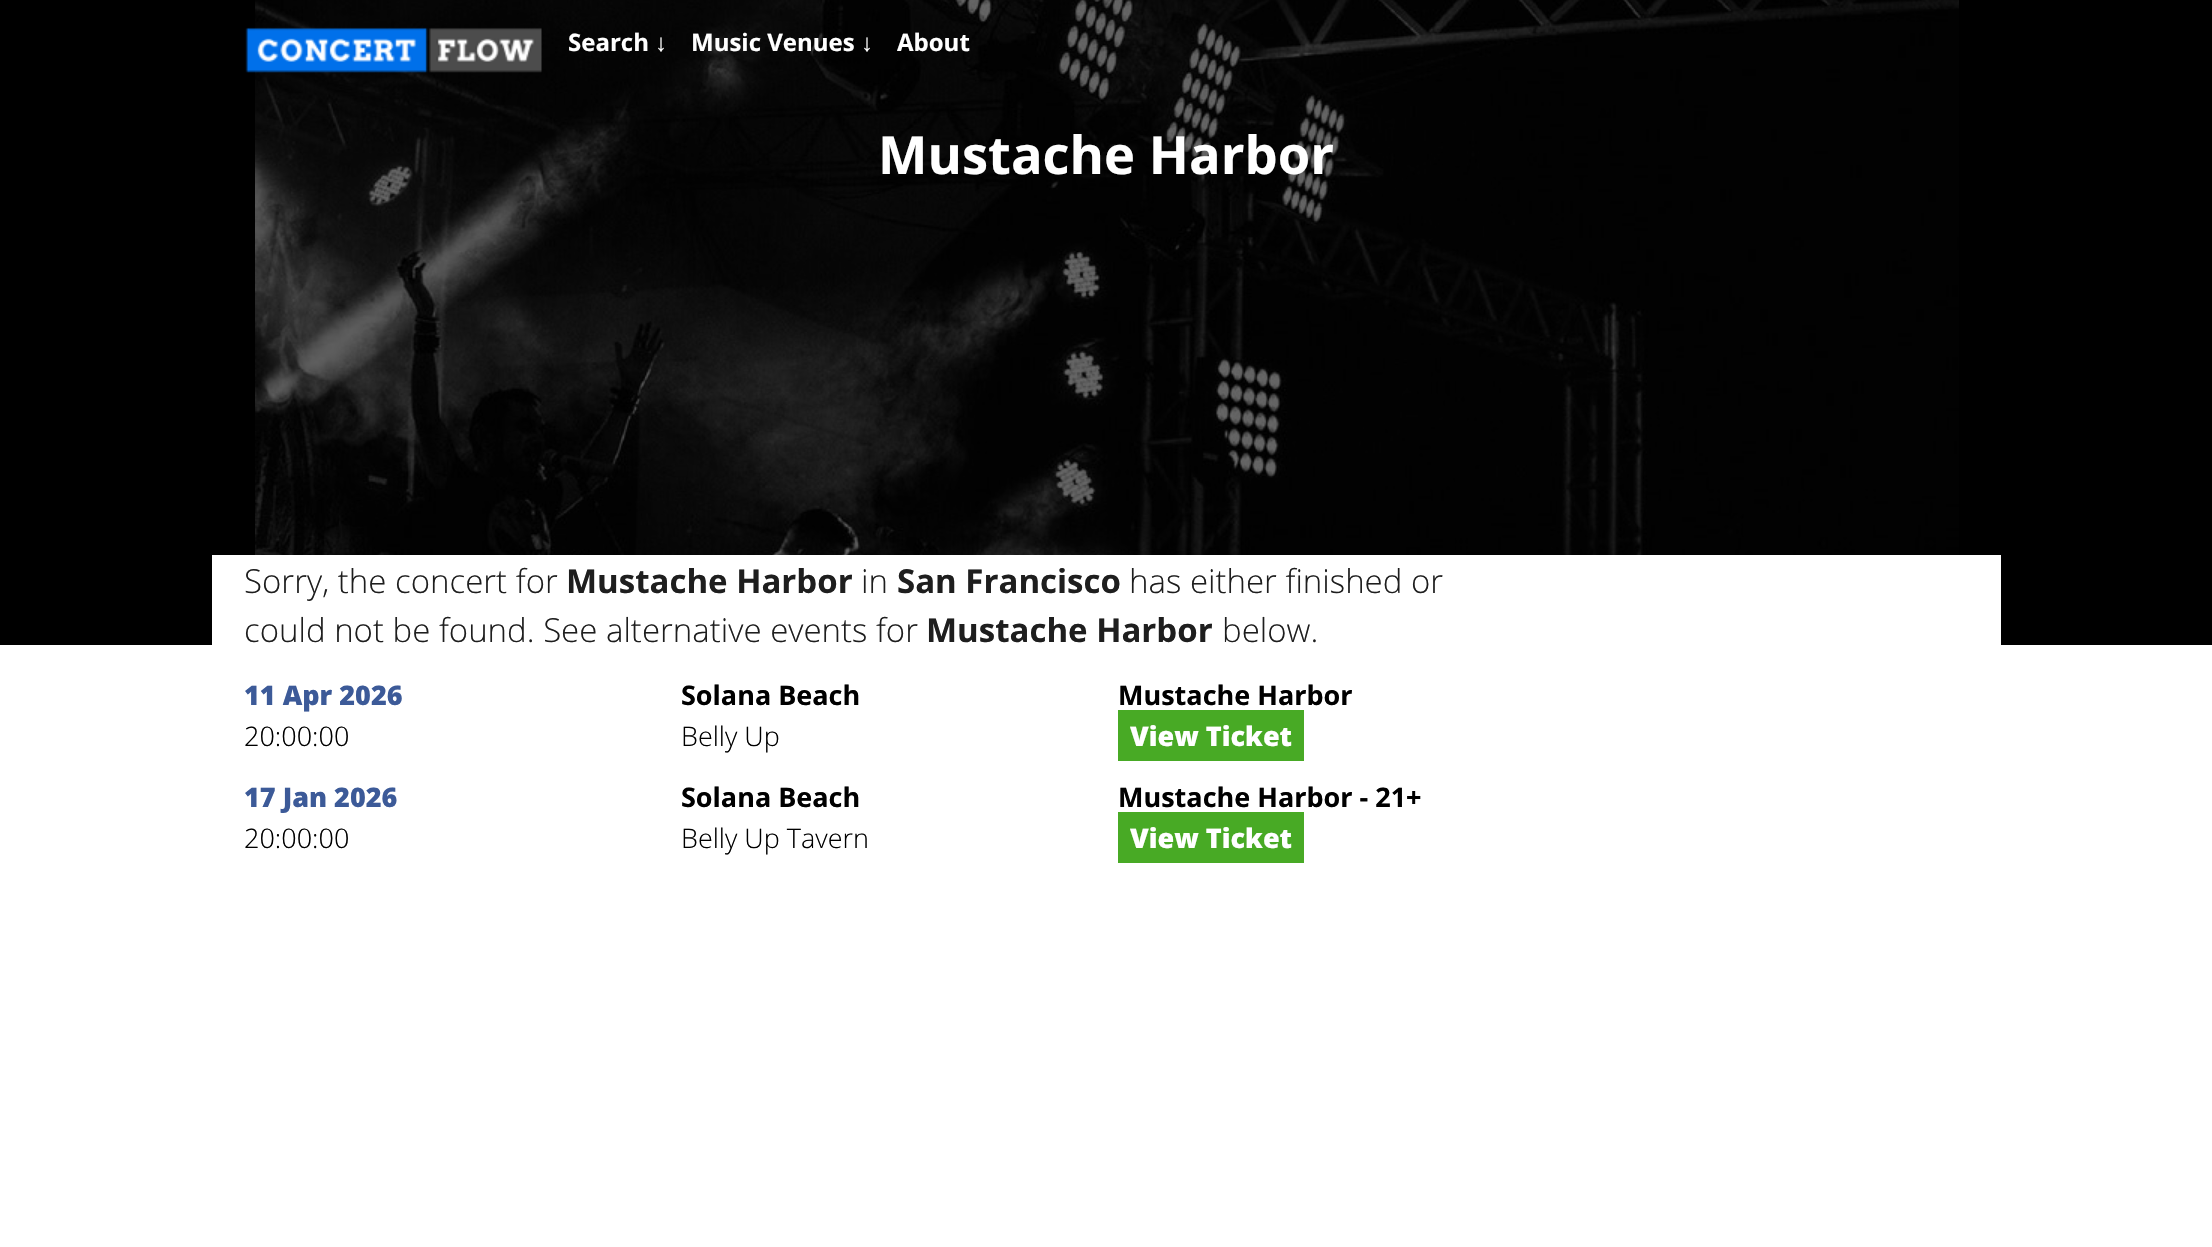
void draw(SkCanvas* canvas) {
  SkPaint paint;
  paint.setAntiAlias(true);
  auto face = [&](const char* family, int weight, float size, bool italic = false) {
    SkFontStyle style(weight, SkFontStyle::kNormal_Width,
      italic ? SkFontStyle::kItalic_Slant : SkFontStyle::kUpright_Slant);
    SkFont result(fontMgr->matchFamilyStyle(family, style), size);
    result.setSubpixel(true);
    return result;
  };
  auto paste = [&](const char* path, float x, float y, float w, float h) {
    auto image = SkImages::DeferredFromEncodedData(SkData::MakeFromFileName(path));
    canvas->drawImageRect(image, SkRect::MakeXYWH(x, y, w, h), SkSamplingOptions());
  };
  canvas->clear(0xffffffff);
  paint.setColor(0xff000000);
  canvas->drawRect(SkRect::MakeXYWH(0, 0, 2212, 645), paint);
  paste("img/1.png", 255, 0, 1704, 555);
  paste("img/2.png", 245, 27, 297, 46);
  {
    const struct { float x, y, w, h; SkColor color; } items[] = {
      {212, 555, 1789, 90, 0xffffffff},
      {1118, 710, 186, 51, 0xff48aa25},
      {1118, 812, 186, 51, 0xff48aa25},
    };
    for (auto [x, y, w, h, color] : items) {
      paint.setColor(color);
      canvas->drawRect(SkRect::MakeXYWH(x, y, w, h), paint);
    }
  }
  auto f0 = face("Open Sans", 700, 24);
  paint.setColor(0xffffffff);
  canvas->drawString("Search", 568, 51, f0, paint);
  auto f1 = face("Liberation Sans", 400, 24);
  canvas->drawString("↓", 655, 51, f1, paint);
  canvas->drawString("Music Venues", 691, 51, f0, paint);
  canvas->drawString("↓", 861, 51, f1, paint);
  canvas->drawString("About", 897, 51, f0, paint);
  auto f2 = face("Open Sans", 700, 52.5f);
  canvas->drawString("Mustache Harbor", 878, 174, f2, paint);
  auto f3 = face("Open Sans", 300, 33);
  paint.setColor(0xff1e1e1e);
  canvas->drawString("Sorry, the concert for", 244, 593, f3, paint);
  auto f4 = face("Open Sans", 700, 33);
  canvas->drawString("Mustache Harbor", 566, 593, f4, paint);
  canvas->drawString("in", 861, 593, f3, paint);
  canvas->drawString("San Francisco", 897, 593, f4, paint);
  canvas->drawString("has either finished or", 1129, 593, f3, paint);
  canvas->drawString("could not be found. See alternative events for", 244, 642, f3, paint);
  canvas->drawString("Mustache Harbor", 926, 642, f4, paint);
  canvas->drawString("below.", 1222, 642, f3, paint);
  auto f5 = face("Open Sans", 800, 27);
  paint.setColor(0xff3c5a98);
  canvas->drawString("11 Apr 2026", 244, 705, f5, paint);
  auto f6 = face("Open Sans", 300, 27);
  paint.setColor(0xff000000);
  canvas->drawString("20:00:00", 244, 746, f6, paint);
  auto f7 = face("Open Sans", 700, 27);
  canvas->drawString("Solana Beach", 681, 705, f7, paint);
  canvas->drawString("Belly Up", 681, 746, f6, paint);
  canvas->drawString("Mustache Harbor", 1118, 705, f7, paint);
  paint.setColor(0xffffffff);
  canvas->drawString("View Ticket", 1130, 746, f5, paint);
  paint.setColor(0xff3c5a98);
  canvas->drawString("17 Jan 2026", 244, 807, f5, paint);
  paint.setColor(0xff000000);
  canvas->drawString("20:00:00", 244, 848, f6, paint);
  canvas->drawString("Solana Beach", 681, 807, f7, paint);
  canvas->drawString("Belly Up Tavern", 681, 848, f6, paint);
  canvas->drawString("Mustache Harbor - 21+", 1118, 807, f7, paint);
  paint.setColor(0xffffffff);
  canvas->drawString("View Ticket", 1130, 848, f5, paint);
}
